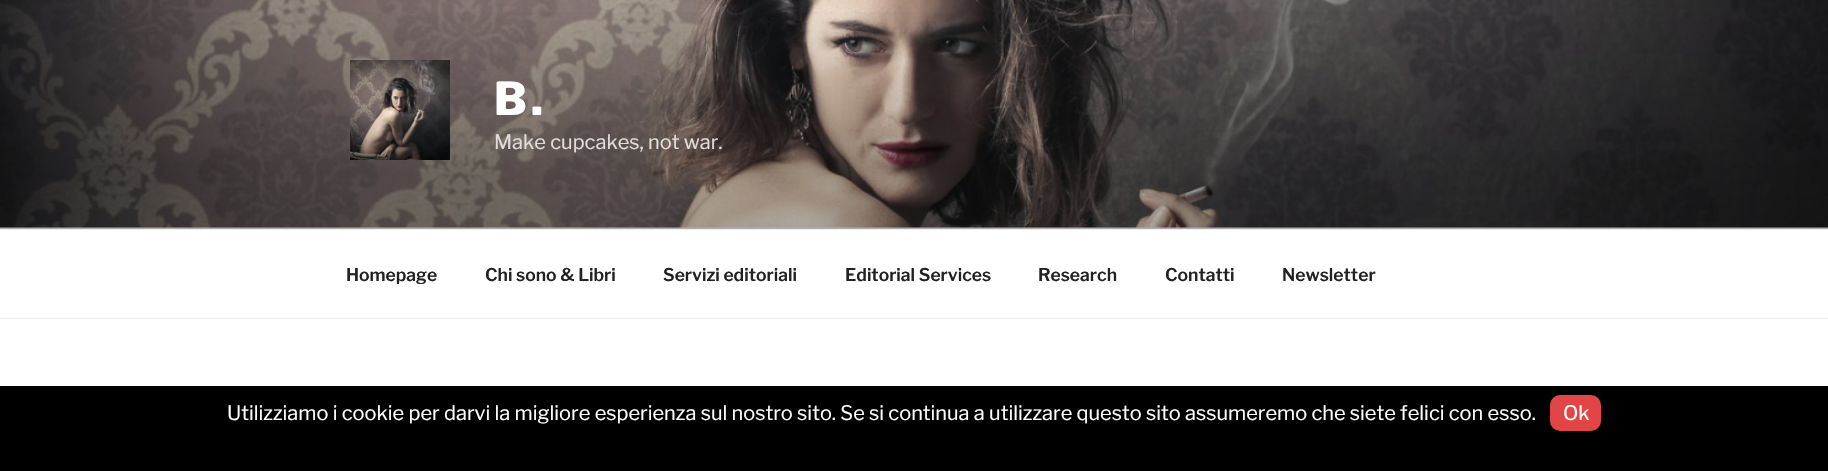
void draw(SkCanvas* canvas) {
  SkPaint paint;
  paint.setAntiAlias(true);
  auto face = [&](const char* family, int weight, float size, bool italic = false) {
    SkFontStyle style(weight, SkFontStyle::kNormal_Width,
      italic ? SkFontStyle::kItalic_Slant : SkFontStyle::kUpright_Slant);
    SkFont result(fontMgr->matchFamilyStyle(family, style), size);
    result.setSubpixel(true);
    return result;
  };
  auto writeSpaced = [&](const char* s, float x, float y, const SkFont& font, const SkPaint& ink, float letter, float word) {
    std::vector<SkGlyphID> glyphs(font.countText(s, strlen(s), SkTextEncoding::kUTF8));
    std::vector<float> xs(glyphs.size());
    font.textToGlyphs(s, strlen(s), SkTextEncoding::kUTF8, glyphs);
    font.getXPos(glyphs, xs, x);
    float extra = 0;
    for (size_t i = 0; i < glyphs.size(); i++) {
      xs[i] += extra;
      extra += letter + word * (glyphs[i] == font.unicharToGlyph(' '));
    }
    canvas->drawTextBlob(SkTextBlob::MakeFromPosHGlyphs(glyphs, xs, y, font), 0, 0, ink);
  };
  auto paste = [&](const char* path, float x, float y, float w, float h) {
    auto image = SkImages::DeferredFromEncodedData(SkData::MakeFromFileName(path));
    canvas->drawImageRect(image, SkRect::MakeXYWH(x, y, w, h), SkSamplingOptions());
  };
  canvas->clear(0xffffffff);
  paint.setColor(0xfffafafa);
  canvas->drawRect(SkRect::MakeXYWH(0, 227, 1828, 2), paint);
  paste("img/1.png", 0, 0, 1828, 228);
  {
    const SkColor colors[] = {0x00000000, 0x4d000000, 0x4d000000};
    const float stops[] = {0, 0.75f, 1};
    const SkPoint ends[] = {{914, 0}, {914, 229}};
    paint.setShader(SkGradientShader::MakeLinear(ends, colors, stops, 3, SkTileMode::kClamp));
    paint.setAlpha(255);
  }
  canvas->drawRect(SkRect::MakeXYWH(0, 12, 1828, 217), paint);
  paste("img/2.png", 350, 60, 100, 100);
  paint.setShader(nullptr);
  {
    const struct { float x, y, w, h; SkColor color; } items[] = {
      {0, 229, 1828, 1, 0xffeeeeee},
      {0, 318, 1828, 1, 0xffeeeeee},
      {0, 386, 1828, 85, 0xff000000},
    };
    for (auto [x, y, w, h, color] : items) {
      paint.setColor(color);
      canvas->drawRect(SkRect::MakeXYWH(x, y, w, h), paint);
    }
  }
  paint.setColor(0xffe24545);
  canvas->drawRoundRect(SkRect::MakeXYWH(1550, 395, 51, 36), 10, 10, paint);
  auto f0 = face("Libre Franklin", 100, 45);
  paint.setColor(0xffffffff);
  writeSpaced("B.", 494, 115, f0, paint, 4, 0);
  auto f1 = face("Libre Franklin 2", 100, 20);
  paint.setColor(0xffe0dddc);
  canvas->drawString("Make cupcakes, not war.", 494, 149, f1, paint);
  auto f2 = face("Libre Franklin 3", 100, 17.5f);
  paint.setColor(0xff222222);
  {
    const struct { const char* s; float x, y; } items[] = {
      {"Homepage", 346, 281},
      {"Chi sono & Libri", 485, 281},
      {"Servizi editoriali", 663, 281},
      {"Editorial Services", 845, 281},
      {"Research", 1038, 281},
      {"Contatti", 1165, 281},
      {"Newsletter", 1282, 281},
    };
    for (auto [s, x, y] : items) {
      canvas->drawString(s, x, y, f2, paint);
    }
  }
  paint.setColor(0xffffffff);
  canvas->drawString("Utilizziamo i cookie per darvi la migliore esperienza sul nostro sito. Se si continua a utilizzare questo sito assumeremo che siete felici con esso.", 227, 420, f1, paint);
  canvas->drawString("Ok", 1563, 420, f1, paint);
}
